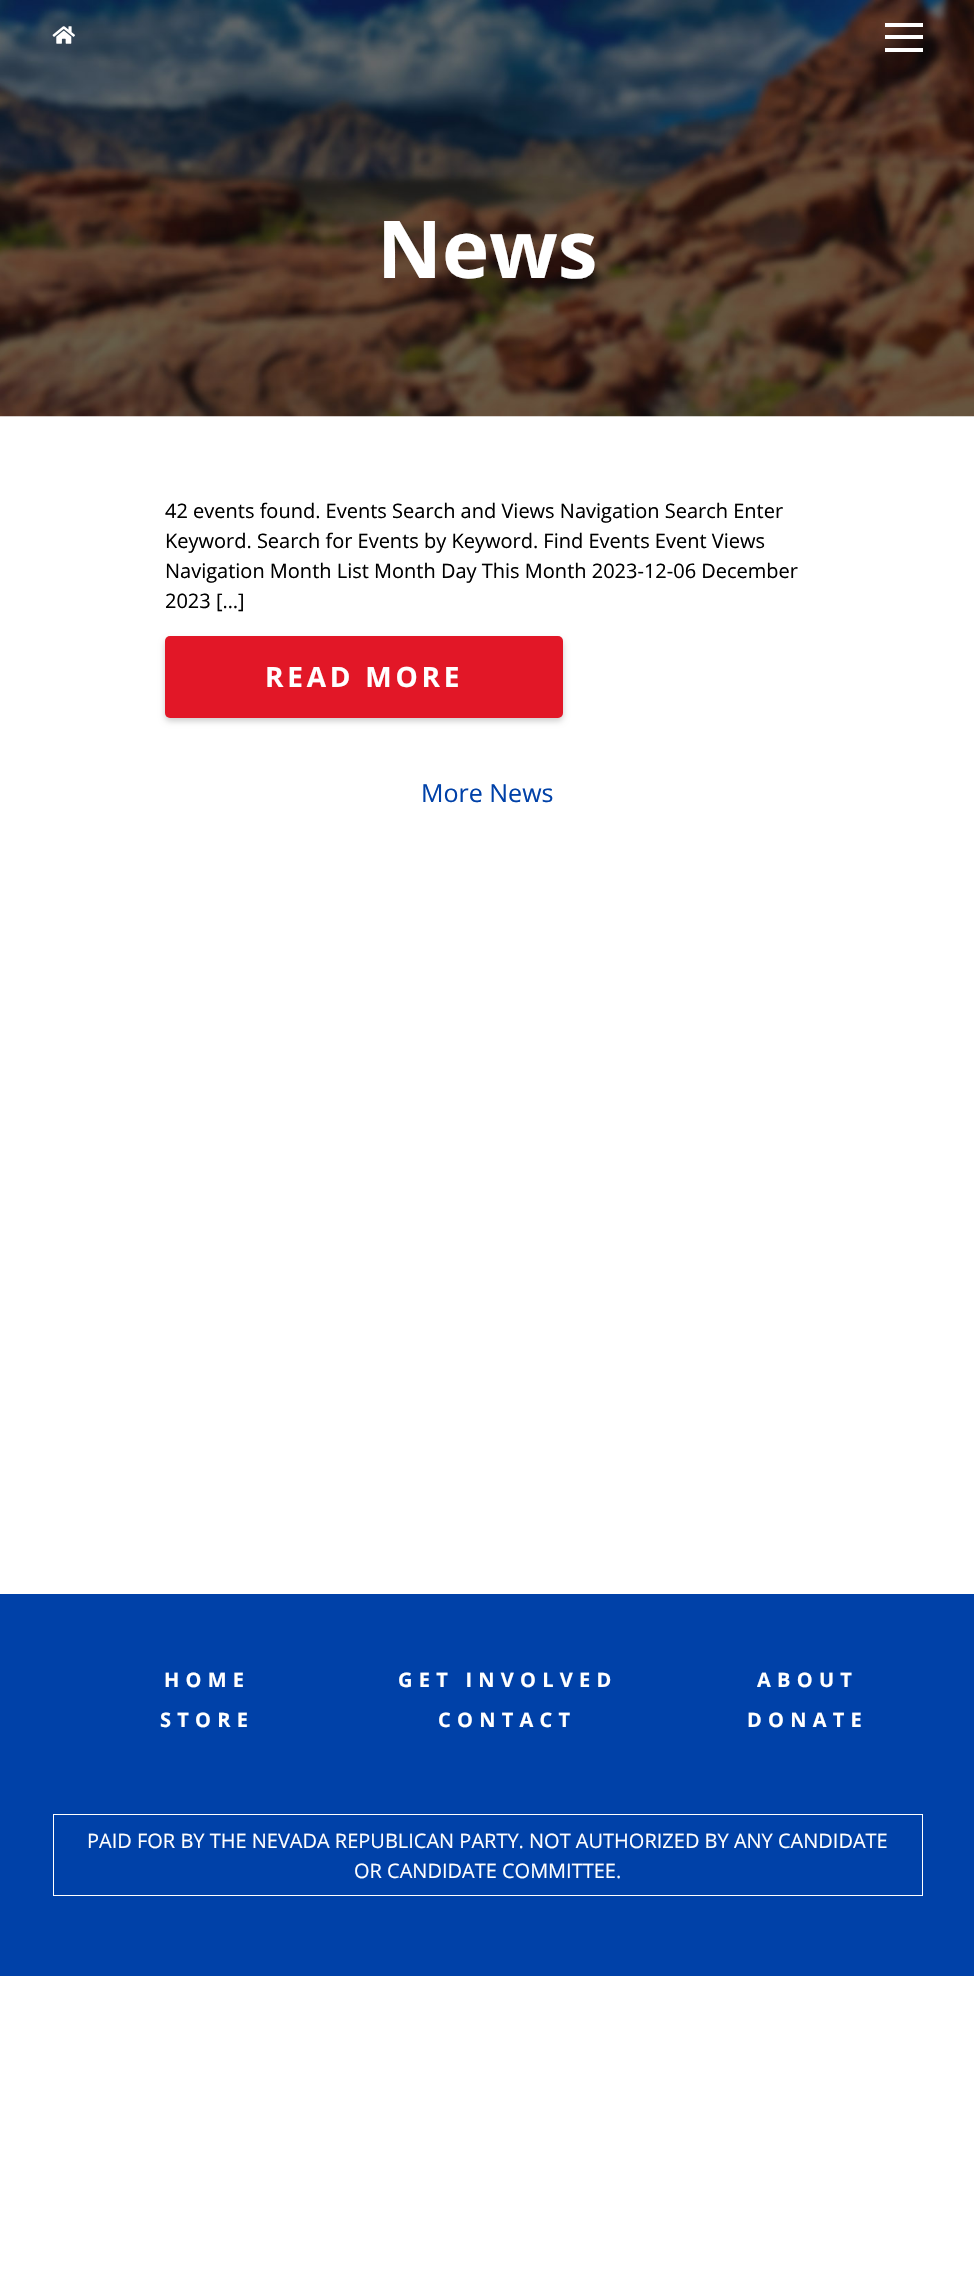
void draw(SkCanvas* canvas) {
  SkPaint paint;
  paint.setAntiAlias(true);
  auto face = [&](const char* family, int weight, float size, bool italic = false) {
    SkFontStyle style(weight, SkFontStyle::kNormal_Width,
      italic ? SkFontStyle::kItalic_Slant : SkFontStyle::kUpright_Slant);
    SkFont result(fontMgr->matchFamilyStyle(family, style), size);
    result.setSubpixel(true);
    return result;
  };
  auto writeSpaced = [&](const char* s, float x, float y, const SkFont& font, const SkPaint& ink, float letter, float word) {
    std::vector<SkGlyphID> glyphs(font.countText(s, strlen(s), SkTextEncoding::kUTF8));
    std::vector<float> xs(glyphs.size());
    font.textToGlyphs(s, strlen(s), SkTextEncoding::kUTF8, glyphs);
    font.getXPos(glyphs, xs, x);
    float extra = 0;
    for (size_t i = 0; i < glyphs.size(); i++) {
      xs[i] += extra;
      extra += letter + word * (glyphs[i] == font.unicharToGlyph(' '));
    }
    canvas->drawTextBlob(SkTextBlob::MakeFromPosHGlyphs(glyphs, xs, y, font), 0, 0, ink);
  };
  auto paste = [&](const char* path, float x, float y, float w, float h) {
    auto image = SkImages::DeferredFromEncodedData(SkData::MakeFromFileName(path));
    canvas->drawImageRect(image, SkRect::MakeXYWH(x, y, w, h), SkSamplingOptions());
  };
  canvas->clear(0xffffffff);
  paste("img/2.png", 0, 0, 974, 417);
  paste("img/1.png", 52, 26, 23, 18);
  {
    const struct { float x, y, w, h; SkColor color; } items[] = {
      {885, 23, 38, 4, 0xffffffff},
      {885, 35, 38, 4, 0xffffffff},
      {885, 48, 38, 4, 0xffffffff},
    };
    for (auto [x, y, w, h, color] : items) {
      paint.setColor(color);
      canvas->drawRect(SkRect::MakeXYWH(x, y, w, h), paint);
    }
  }
  paint.setColor(0x33000000);
  paint.setMaskFilter(SkMaskFilter::MakeBlur(kNormal_SkBlurStyle, 3));
  canvas->drawRoundRect(SkRect::MakeXYWH(165, 640, 398, 81), 5, 5, paint);
  paint.setMaskFilter(nullptr);
  paint.setColor(0xffe21727);
  canvas->drawRoundRect(SkRect::MakeXYWH(165, 636, 398, 82), 5, 5, paint);
  paint.setColor(0xff0041a8);
  canvas->drawRect(SkRect::MakeXYWH(0, 1594, 974, 382), paint);
  paint.setStroke(true);
  paint.setStrokeWidth(1);
  paint.setColor(0xffffffff);
  canvas->drawRect(SkRect::MakeXYWH(53.5f, 1814.5f, 869, 81), paint);
  auto f0 = face("Open Sans", 700, 80);
  paint.setStroke(false);
  canvas->drawString("News", 377, 278, f0, paint);
  auto f1 = face("Open Sans", 400, 20);
  paint.setColor(0xff000000);
  {
    const struct { const char* s; float x, y; } items[] = {
      {"42 events found. Events Search and Views Navigation Search Enter", 165, 518},
      {"Keyword. Search for Events by Keyword. Find Events Event Views", 165, 548},
      {"Navigation Month List Month Day This Month 2023-12-06 December", 165, 578},
      {"2023 […]", 165, 608},
    };
    for (auto [s, x, y] : items) {
      canvas->drawString(s, x, y, f1, paint);
    }
  }
  auto f2 = face("Open Sans", 700, 28);
  paint.setColor(0xffffffff);
  writeSpaced("READ MORE", 265, 687, f2, paint, 3.75f, 0);
  auto f3 = face("Open Sans", 400, 25);
  paint.setColor(0xff0041a8);
  canvas->drawString("More News", 421, 802, f3, paint);
  auto f4 = face("Open Sans", 700, 20);
  paint.setColor(0xffffffff);
  {
    const struct { const char* s; float x, y; } items[] = {
      {"HOME", 164, 1687},
      {"STORE", 160, 1727},
      {"GET INVOLVED", 398, 1687},
      {"CONTACT", 438, 1727},
      {"ABOUT", 757, 1687},
      {"DONATE", 747, 1727},
    };
    for (auto [s, x, y] : items) {
      writeSpaced(s, x, y, f4, paint, 6.25f, 0);
    }
  }
  canvas->drawString("PAID FOR BY THE NEVADA REPUBLICAN PARTY. NOT AUTHORIZED BY ANY CANDIDATE", 87, 1848, f1, paint);
  canvas->drawString("OR CANDIDATE COMMITTEE.", 354, 1878, f1, paint);
}
